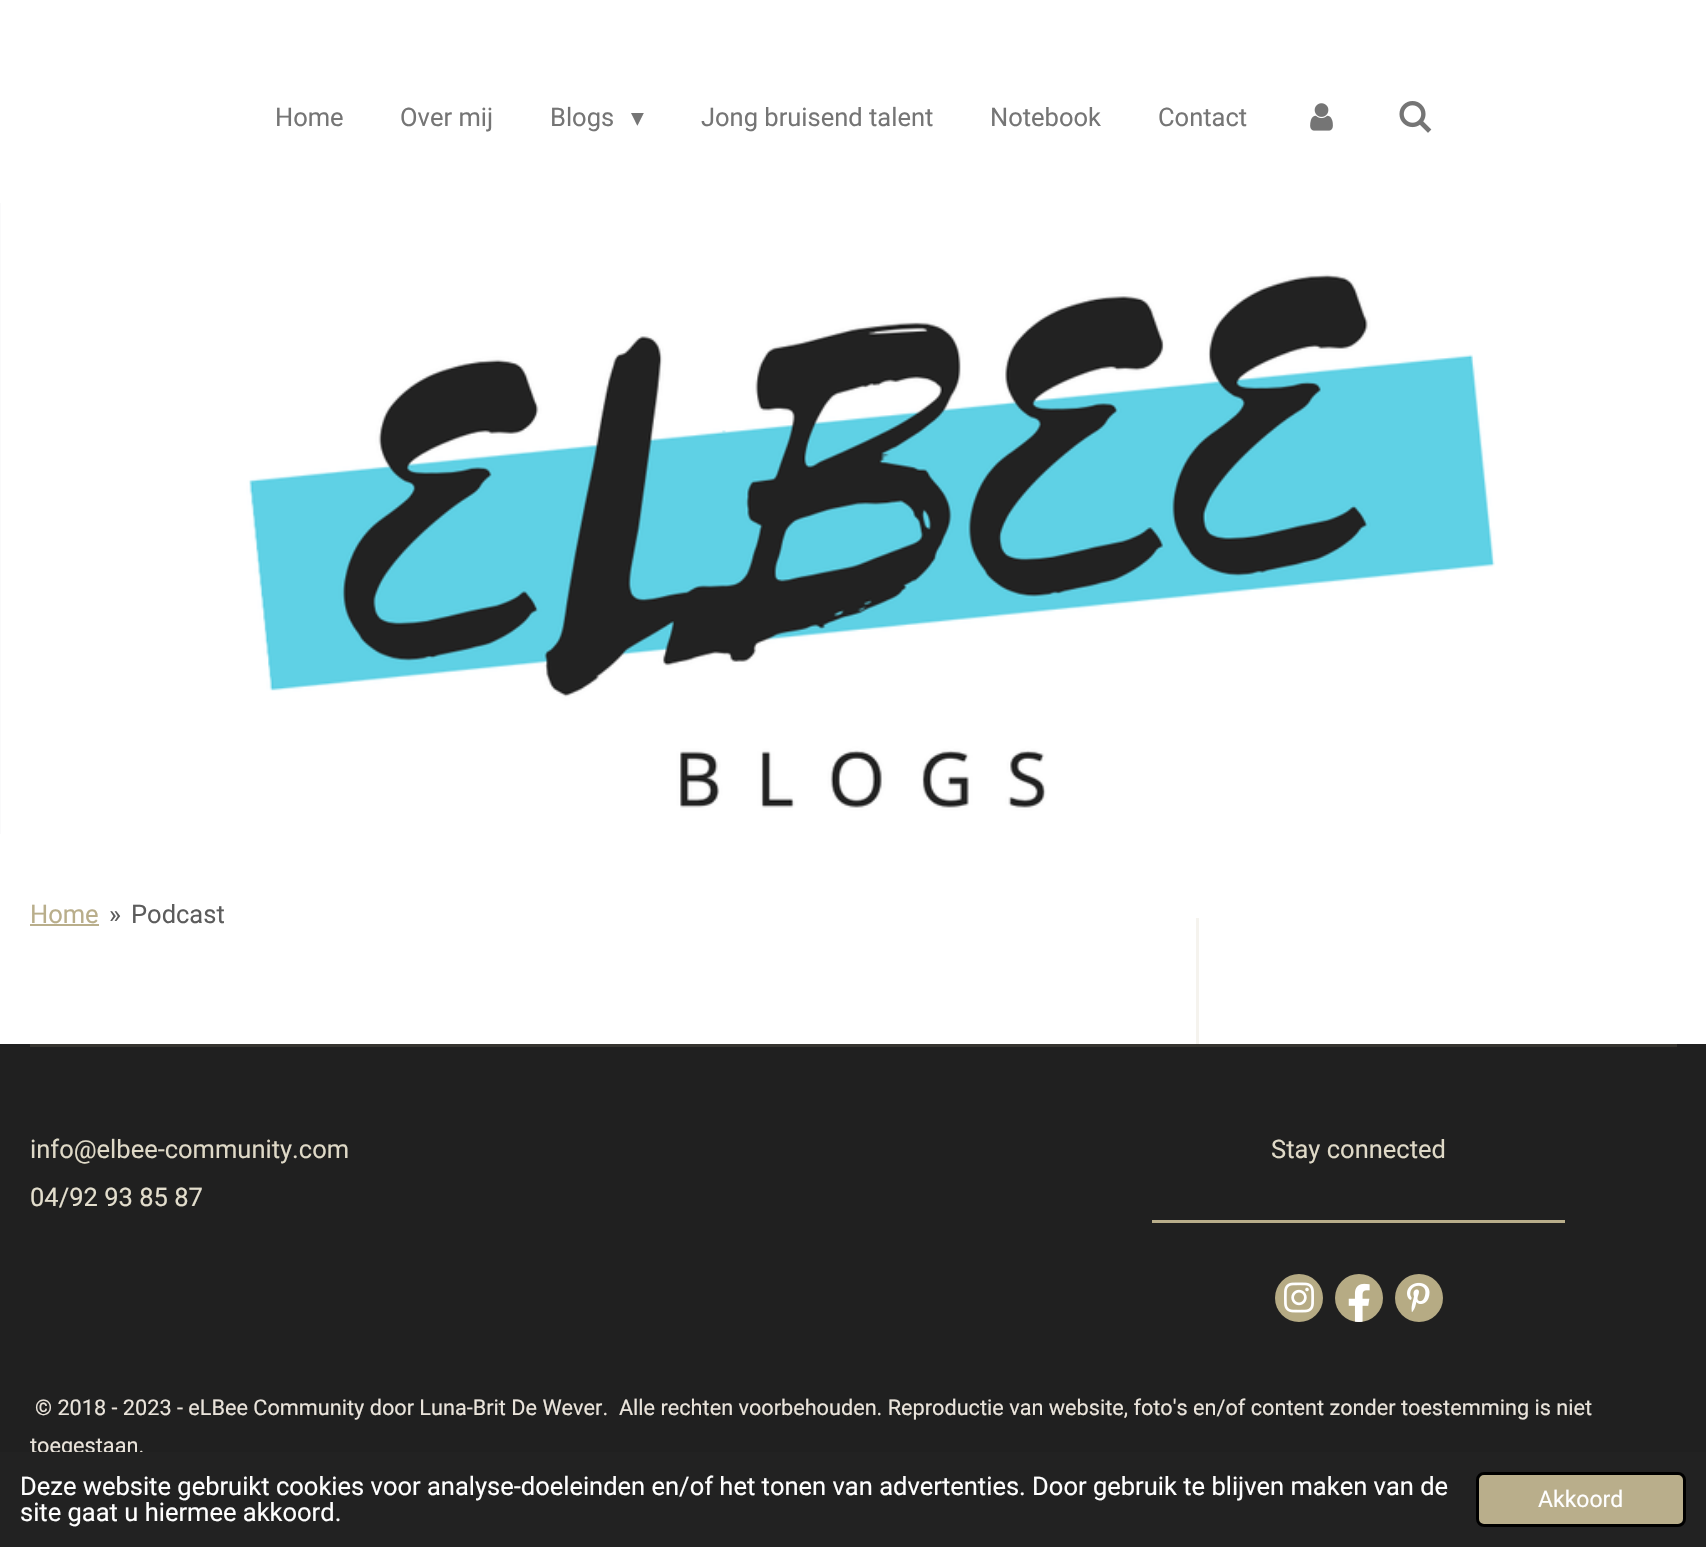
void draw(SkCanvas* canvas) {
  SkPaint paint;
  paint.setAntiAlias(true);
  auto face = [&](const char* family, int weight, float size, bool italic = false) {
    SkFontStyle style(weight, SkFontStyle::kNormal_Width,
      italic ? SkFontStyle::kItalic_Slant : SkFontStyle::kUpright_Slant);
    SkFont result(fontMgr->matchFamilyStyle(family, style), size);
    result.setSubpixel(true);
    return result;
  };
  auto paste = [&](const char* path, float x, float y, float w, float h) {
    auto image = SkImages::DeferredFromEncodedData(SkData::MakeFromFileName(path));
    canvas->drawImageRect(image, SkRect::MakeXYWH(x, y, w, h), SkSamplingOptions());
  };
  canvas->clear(0xffffffff);
  paste("img/1.png", 1310, 103, 23, 28);
  paste("img/2.png", 1399, 101, 33, 32);
  paste("img/3.png", 0, 203, 1495, 631);
  {
    const struct { float x, y, w, h; SkColor color; } items[] = {
      {30, 924, 69, 2, 0xffb9ae8b},
      {1196, 918, 3, 126, 0xfff5f3ee},
      {0, 1044, 1706, 408, 0xff202020},
      {30, 1044, 1647, 3, 0xff373530},
      {1152, 1220, 413, 3, 0xffb9ae8b},
    };
    for (auto [x, y, w, h, color] : items) {
      paint.setColor(color);
      canvas->drawRect(SkRect::MakeXYWH(x, y, w, h), paint);
    }
  }
  paint.setColor(0xffb6ab84);
  canvas->drawCircle(1299, 1298, 24, paint);
  paste("img/4.png", 1284, 1282, 30, 31);
  canvas->drawCircle(1359, 1298, 24, paint);
  paste("img/5.png", 1348, 1283, 22, 39);
  canvas->drawCircle(1419, 1298, 24, paint);
  paste("img/6.png", 1407, 1282, 23, 30);
  auto f0 = face("Roboto", 400, 25.5f);
  paint.setColor(0xff757575);
  {
    const struct { const char* s; float x, y; } items[] = {
      {"Home", 275, 126},
      {"Over mij", 400, 126},
      {"Blogs", 550, 126},
    };
    for (auto [s, x, y] : items) {
      canvas->drawString(s, x, y, f0, paint);
    }
  }
  auto f1 = face("DejaVu Sans", 400, 25.5f);
  canvas->drawString("▾", 631, 126, f1, paint);
  {
    const struct { const char* s; float x, y; } items[] = {
      {"Jong bruisend talent", 701, 126},
      {"Notebook", 990, 126},
      {"Contact", 1158, 126},
    };
    for (auto [s, x, y] : items) {
      canvas->drawString(s, x, y, f0, paint);
    }
  }
  paint.setColor(0xffb9ae8b);
  canvas->drawString("Home", 30, 923, f0, paint);
  paint.setColor(0xff5c5c5c);
  canvas->drawString("»", 109, 923, f0, paint);
  canvas->drawString("Podcast", 131, 923, f0, paint);
  paint.setColor(0xffdfd9c7);
  canvas->drawString("info@elbee-community.com", 30, 1158, f0, paint);
  paint.setColor(0xffe3decd);
  canvas->drawString("04/92 93 85 87", 30, 1206, f0, paint);
  paint.setColor(0xffdfd9c7);
  canvas->drawString("Stay connected", 1271, 1158, f0, paint);
  auto f2 = face("Roboto", 400, 21.67f);
  paint.setColor(0xffeae4db);
  canvas->drawString("© 2018 - 2023 - eLBee Community door Luna-Brit De Wever.  Alle rechten voorbehouden. Reproductie van website, foto's en/of content zonder toestemming is niet", 35, 1415, f2, paint);
  canvas->drawString("toegestaan.", 30, 1453, f2, paint);
  paint.setColor(0xff222222);
  canvas->drawRect(SkRect::MakeXYWH(0, 1452, 1706, 95), paint);
  paint.setColor(0xffffffff);
  canvas->drawString("Deze website gebruikt cookies voor analyse-doeleinden en/of het tonen van advertenties. Door gebruik te blijven maken van de", 20, 1495, f0, paint);
  canvas->drawString("site gaat u hiermee akkoord.", 20, 1521, f0, paint);
  paint.setColor(0xffb9ae8b);
  canvas->drawRoundRect(SkRect::MakeXYWH(1477.5f, 1473.5f, 207, 52), 6.5f, 6.5f, paint);
  paint.setStroke(true);
  paint.setStrokeWidth(3);
  paint.setColor(0xff000000);
  canvas->drawRoundRect(SkRect::MakeXYWH(1477.5f, 1473.5f, 207, 52), 6.5f, 6.5f, paint);
  auto f3 = face("Roboto", 400, 23);
  paint.setStroke(false);
  paint.setColor(0xffffffff);
  canvas->drawString("Akkoord", 1538, 1507, f3, paint);
}
